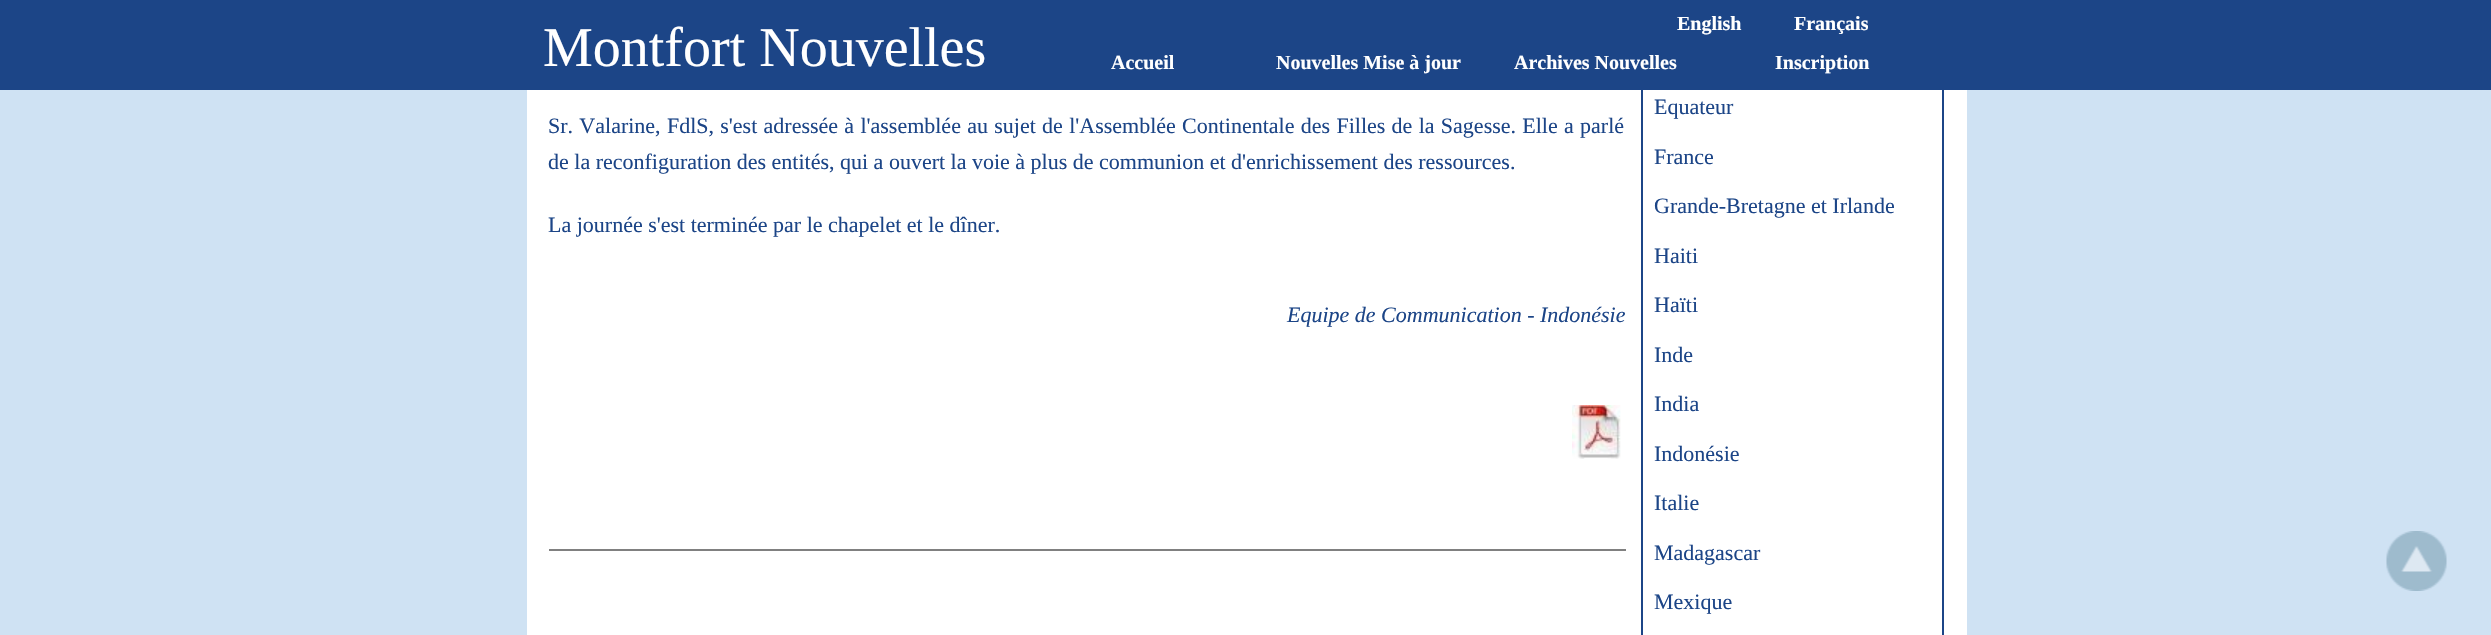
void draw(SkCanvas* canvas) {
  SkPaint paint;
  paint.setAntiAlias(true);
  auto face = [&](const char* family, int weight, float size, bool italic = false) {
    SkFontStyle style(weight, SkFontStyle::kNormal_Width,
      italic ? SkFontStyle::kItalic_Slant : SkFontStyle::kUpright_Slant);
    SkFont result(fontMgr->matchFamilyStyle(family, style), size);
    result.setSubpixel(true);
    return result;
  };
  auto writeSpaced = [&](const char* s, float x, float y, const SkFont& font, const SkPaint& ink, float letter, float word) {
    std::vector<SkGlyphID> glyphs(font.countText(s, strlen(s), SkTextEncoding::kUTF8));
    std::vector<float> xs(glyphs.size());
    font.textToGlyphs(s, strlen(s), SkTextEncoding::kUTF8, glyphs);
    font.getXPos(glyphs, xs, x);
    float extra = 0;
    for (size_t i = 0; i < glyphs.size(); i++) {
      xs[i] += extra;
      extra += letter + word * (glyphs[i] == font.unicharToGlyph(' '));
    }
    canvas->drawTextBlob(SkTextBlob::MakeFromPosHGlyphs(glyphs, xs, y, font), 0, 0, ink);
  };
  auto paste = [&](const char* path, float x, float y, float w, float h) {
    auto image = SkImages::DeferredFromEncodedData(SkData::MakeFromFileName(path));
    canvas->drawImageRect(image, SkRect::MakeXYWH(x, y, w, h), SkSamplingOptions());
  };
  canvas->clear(0xffcfe2f3);
  paint.setColor(0xffffffff);
  canvas->drawRect(SkRect::MakeXYWH(527, 90, 1440, 545), paint);
  paint.setStroke(true);
  paint.setStrokeWidth(2);
  paint.setColor(0xff1c4587);
  canvas->drawRect(SkRect::MakeXYWH(1642, -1, 301, 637), paint);
  paint.setStroke(false);
  canvas->drawRect(SkRect::MakeXYWH(0, 0, 2491, 90), paint);
  paste("img/1.png", 1572, 405, 49, 54);
  paint.setColor(0xff808080);
  canvas->drawRect(SkRect::MakeXYWH(549, 549, 1077, 2), paint);
  paste("img/2.png", 2386, 531, 61, 60);
  auto f0 = face("Liberation Serif", 400, 56);
  paint.setColor(0xffffffff);
  canvas->drawString("Montfort Nouvelles", 543, 66, f0, paint);
  auto f1 = face("Liberation Serif", 700, 20);
  {
    const struct { const char* s; float x, y; } items[] = {
      {"English", 1677, 30},
      {"Français", 1794, 30},
      {"Accueil", 1111, 69},
      {"Nouvelles Mise à jour", 1276, 69},
      {"Archives Nouvelles", 1514, 69},
      {"Inscription", 1775, 69},
    };
    for (auto [s, x, y] : items) {
      canvas->drawString(s, x, y, f1, paint);
    }
  }
  auto f2 = face("Liberation Serif", 400, 22);
  paint.setColor(0xff1c4587);
  writeSpaced("Sr. Valarine, FdlS, s'est adressée à l'assemblée au sujet de l'Assemblée Continentale des Filles de la Sagesse. Elle a parlé", 548, 133, f2, paint, 0, 0.8f);
  canvas->drawString("de la reconfiguration des entités, qui a ouvert la voie à plus de communion et d'enrichissement des ressources.", 548, 169, f2, paint);
  canvas->drawString("La journée s'est terminée par le chapelet et le dîner.", 548, 232, f2, paint);
  auto f3 = face("Liberation Serif", 400, 22, true);
  canvas->drawString("Equipe de Communication - Indonésie", 1287, 322, f3, paint);
  {
    const struct { const char* s; float x, y; } items[] = {
      {"Equateur", 1654, 114},
      {"France", 1654, 164},
      {"Grande-Bretagne et Irlande", 1654, 213},
      {"Haiti", 1654, 263},
      {"Haïti", 1654, 312},
      {"Inde", 1654, 362},
      {"India", 1654, 411},
      {"Indonésie", 1654, 461},
      {"Italie", 1654, 510},
      {"Madagascar", 1654, 560},
      {"Mexique", 1654, 609},
    };
    for (auto [s, x, y] : items) {
      canvas->drawString(s, x, y, f2, paint);
    }
  }
}
